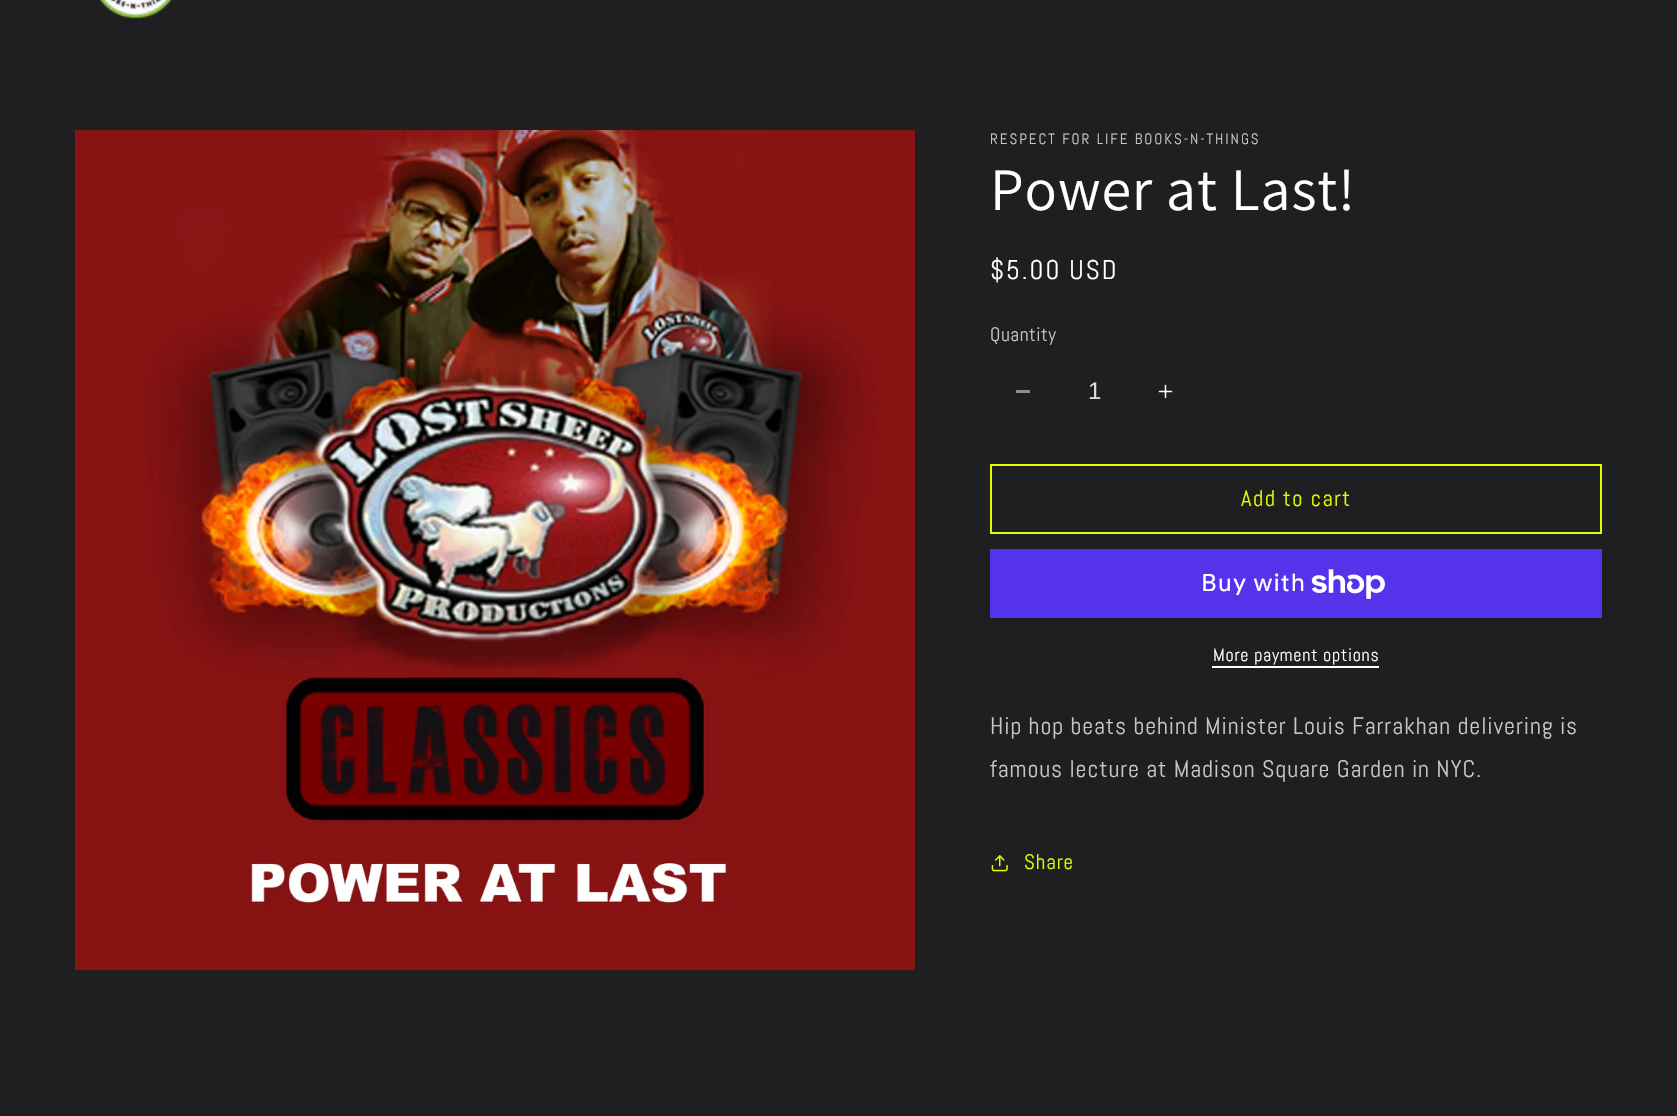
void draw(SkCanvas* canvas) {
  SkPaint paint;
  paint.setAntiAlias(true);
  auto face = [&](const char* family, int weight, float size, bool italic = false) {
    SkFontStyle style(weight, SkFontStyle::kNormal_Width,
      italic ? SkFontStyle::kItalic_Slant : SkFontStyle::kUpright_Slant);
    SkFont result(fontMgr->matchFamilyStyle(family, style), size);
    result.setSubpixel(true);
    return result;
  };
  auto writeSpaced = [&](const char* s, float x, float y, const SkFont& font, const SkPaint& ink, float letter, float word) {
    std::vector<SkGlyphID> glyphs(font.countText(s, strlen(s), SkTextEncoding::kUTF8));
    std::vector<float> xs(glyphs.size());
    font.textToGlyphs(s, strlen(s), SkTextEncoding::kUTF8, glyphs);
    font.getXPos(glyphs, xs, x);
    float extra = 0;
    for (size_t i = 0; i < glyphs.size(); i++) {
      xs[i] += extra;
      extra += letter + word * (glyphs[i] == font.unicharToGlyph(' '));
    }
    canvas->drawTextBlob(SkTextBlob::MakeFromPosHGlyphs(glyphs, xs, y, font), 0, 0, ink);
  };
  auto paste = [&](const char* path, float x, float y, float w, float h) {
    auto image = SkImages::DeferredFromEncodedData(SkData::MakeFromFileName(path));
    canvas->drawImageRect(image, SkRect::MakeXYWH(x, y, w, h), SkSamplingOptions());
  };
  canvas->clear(0xff1f1f21);
  paste("img/1.png", 100, 0, 72, 20);
  paste("img/2.png", 75, 130, 840, 840);
  paint.setColor(0xff8f8f90);
  canvas->drawRect(SkRect::MakeXYWH(1016, 390, 14, 3), paint);
  paste("img/3.png", 1158, 384, 15, 15);
  paint.setStroke(true);
  paint.setStrokeWidth(2);
  paint.setColor(0xffe3fc02);
  canvas->drawRect(SkRect::MakeXYWH(991, 465, 610, 68), paint);
  paint.setStroke(false);
  paint.setColor(0xff5433eb);
  canvas->drawRect(SkRect::MakeXYWH(990, 549, 612, 69), paint);
  paste("img/4.png", 1311, 569, 74, 30);
  paint.setColor(0xffffffff);
  canvas->drawRect(SkRect::MakeXYWH(1212, 666, 167, 2), paint);
  paste("img/5.png", 991, 855, 17, 17);
  auto f0 = face("Abel", 400, 15);
  paint.setColor(0xffc7c7c8);
  writeSpaced("RESPECT FOR LIFE BOOKS-N-THINGS", 990, 144, f0, paint, 1.95f, 0);
  auto f1 = face("Assistant", 400, 60);
  paint.setColor(0xffffffff);
  writeSpaced("Power at Last!", 990, 210, f1, paint, 0.9f, 0);
  auto f2 = face("Abel", 400, 27);
  writeSpaced("$5.00 USD", 990, 279, f2, paint, 1.95f, 0);
  auto f3 = face("Abel", 400, 19.5f);
  paint.setColor(0xffc7c7c8);
  writeSpaced("Quantity", 990, 341, f3, paint, 0.5f, 0);
  auto f4 = face("Liberation Sans", 400, 24);
  paint.setColor(0xffddddde);
  canvas->drawString("1", 1088, 399, f4, paint);
  auto f5 = face("Abel", 400, 22.5f);
  paint.setColor(0xffe3fc02);
  writeSpaced("Add to cart", 1241, 506, f5, paint, 1.5f, 0);
  auto f6 = face("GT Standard", 400, 24);
  paint.setColor(0xffffffff);
  writeSpaced("Buy with", 1201, 591, f6, paint, 0.9f, 0);
  auto f7 = face("Abel", 400, 18);
  writeSpaced("More payment options", 1213, 661, f7, paint, 0.75f, 0);
  auto f8 = face("Abel", 400, 24);
  paint.setColor(0xffc7c7c8);
  writeSpaced("Hip hop beats behind Minister Louis Farrakhan delivering is", 990, 734, f8, paint, 0.9f, 0);
  writeSpaced("famous lecture at Madison Square Garden in NYC.", 990, 777, f8, paint, 0.9f, 0);
  auto f9 = face("Abel", 400, 21);
  paint.setColor(0xffe3fc02);
  writeSpaced("Share", 1024, 869, f9, paint, 0.9f, 0);
}
